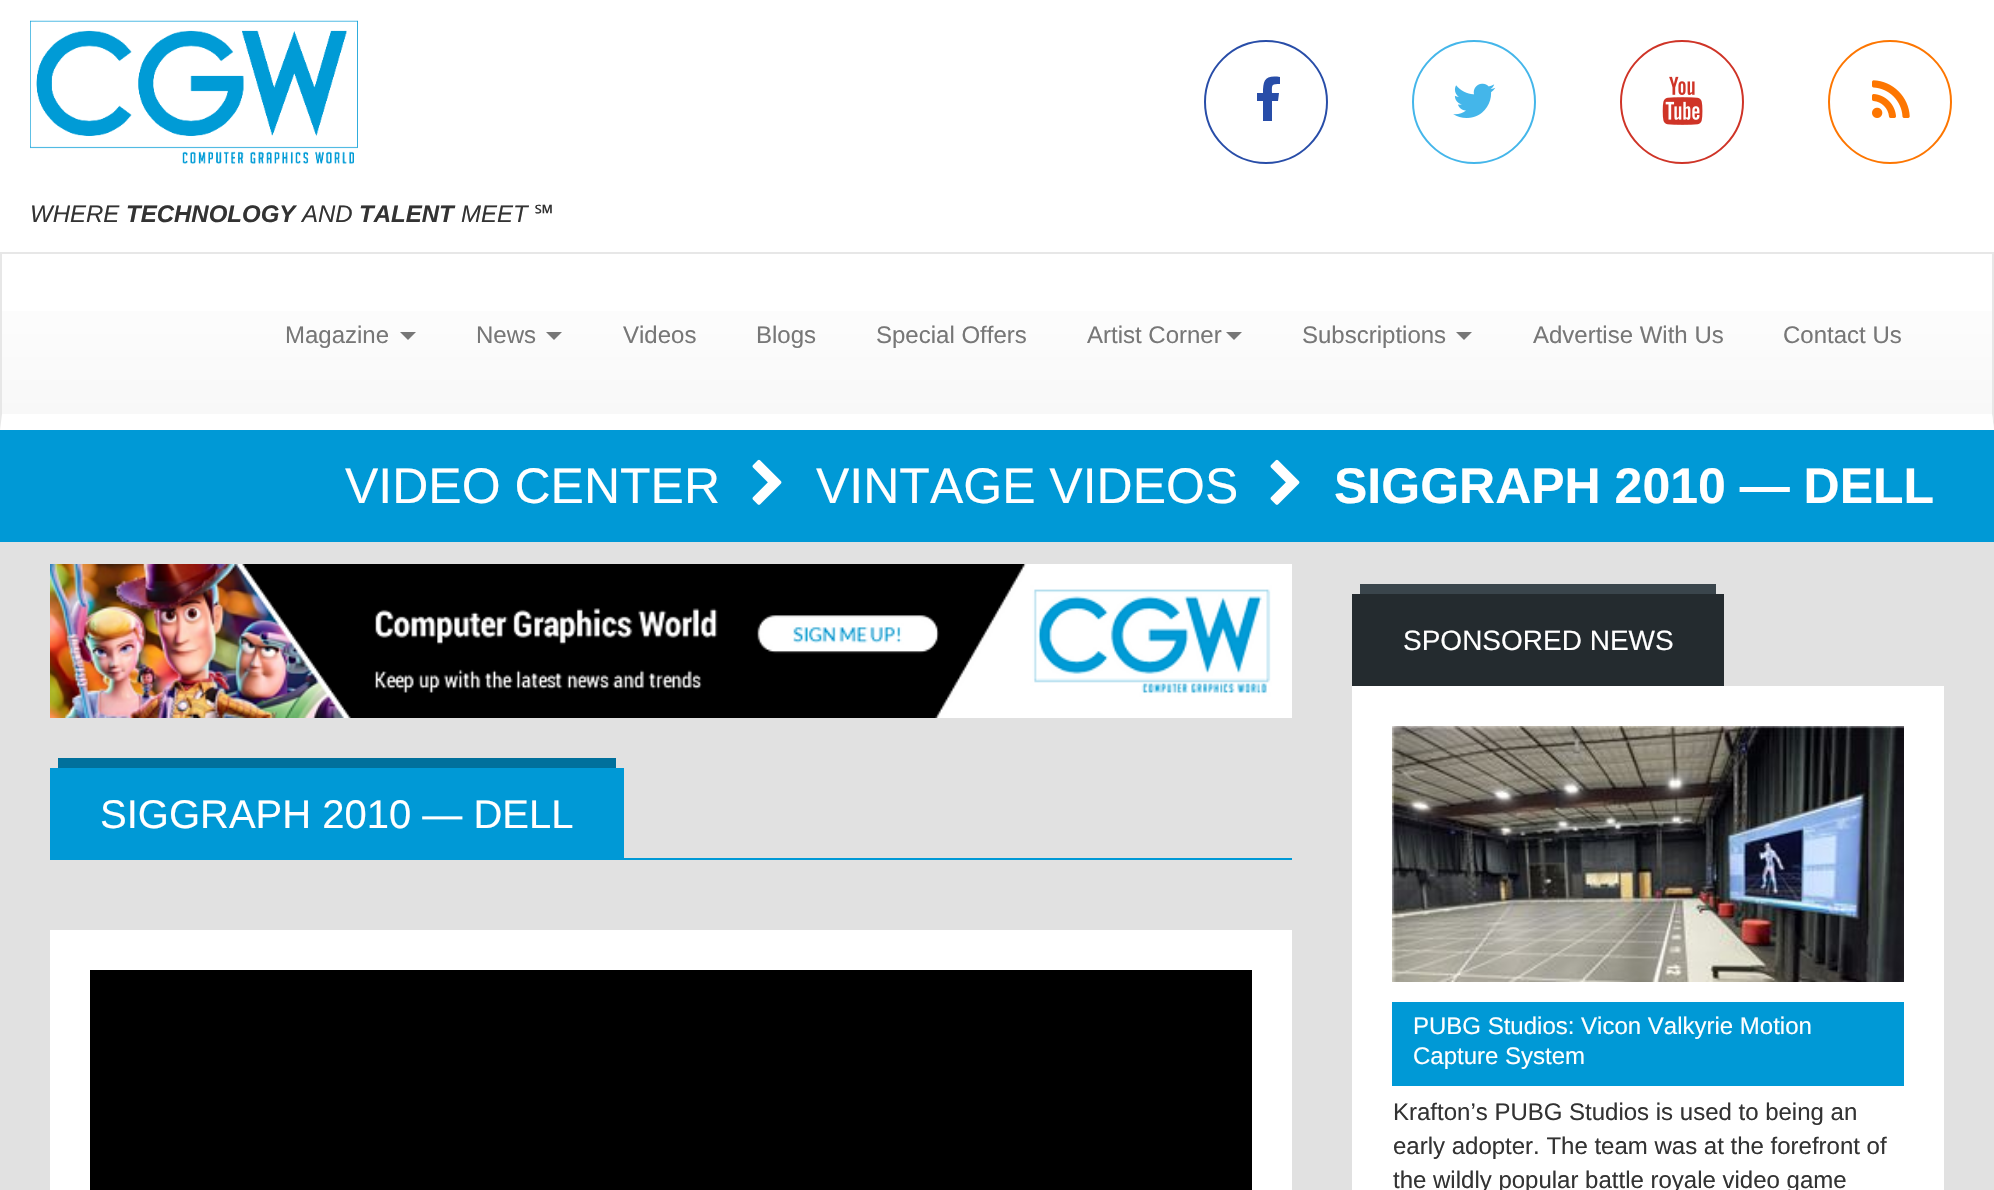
void draw(SkCanvas* canvas) {
  SkPaint paint;
  paint.setAntiAlias(true);
  auto face = [&](const char* family, int weight, float size, bool italic = false) {
    SkFontStyle style(weight, SkFontStyle::kNormal_Width,
      italic ? SkFontStyle::kItalic_Slant : SkFontStyle::kUpright_Slant);
    SkFont result(fontMgr->matchFamilyStyle(family, style), size);
    result.setSubpixel(true);
    return result;
  };
  auto paste = [&](const char* path, float x, float y, float w, float h) {
    auto image = SkImages::DeferredFromEncodedData(SkData::MakeFromFileName(path));
    canvas->drawImageRect(image, SkRect::MakeXYWH(x, y, w, h), SkSamplingOptions());
  };
  auto shape = [&](const char* data, bool evenOdd = false) {
    SkPath result = *SkParsePath::FromSVGString(data);
    if (evenOdd) result.setFillType(SkPathFillType::kEvenOdd);
    return result;
  };
  canvas->clear(0xffffffff);
  paint.setStroke(true);
  paint.setStrokeWidth(2);
  paint.setColor(0xff284da8);
  canvas->drawCircle(1266, 102, 61, paint);
  paint.setStroke(false);
  canvas->drawPath(shape("M1280 77V84C1271 84 1272 85 1272 93H1279L1278 101H1272V121H1263V101H1257V93H1263C1263 80 1265 75 1280 77Z"), paint);
  paint.setStroke(true);
  paint.setColor(0xff44b6ea);
  canvas->drawCircle(1474, 102, 61, paint);
  paste("img/1.png", 1453, 83, 43, 35);
  paint.setColor(0xffcf3427);
  canvas->drawCircle(1682, 102, 61, paint);
  paste("img/2.png", 1662, 76, 41, 49);
  paint.setColor(0xfffd7601);
  canvas->drawCircle(1890, 102, 61, paint);
  paste("img/3.png", 1872, 80, 38, 38);
  paste("img/4.png", 30, 20, 328, 144);
  paint.setStroke(false);
  {
    const SkColor colors[] = {0xffffffff, 0xfff8f8f8};
    const float stops[] = {0, 1};
    const SkPoint ends[] = {{997, 254}, {997, 414}};
    paint.setShader(SkGradientShader::MakeLinear(ends, colors, stops, 2, SkTileMode::kClamp));
    paint.setAlpha(255);
  }
  canvas->drawRect(SkRect::MakeXYWH(2, 311, 1990, 103), paint);
  paint.setShader(nullptr);
  paint.setColor(0xffe7e7e7);
  canvas->drawRect(SkRect::MakeXYWH(0, 252, 1994, 2), paint);
  canvas->drawPath(shape("M1994 252V430L1992 414V254Z"), paint);
  paint.setColor(0xffffffff);
  canvas->drawPath(shape("M1994 430H0L2 414H1992Z"), paint);
  paint.setColor(0xffe7e7e7);
  canvas->drawPath(shape("M0 430V252L2 254V414Z"), paint);
  paint.setColor(0xff777777);
  canvas->drawPath(shape("M400 332H416L408 340Z"), paint);
  canvas->drawPath(shape("M546 332H562L554 340Z"), paint);
  canvas->drawPath(shape("M1226 332H1242L1234 340Z"), paint);
  canvas->drawPath(shape("M1456 332H1472L1464 340Z"), paint);
  paint.setColor(0xff0099d6);
  canvas->drawRect(SkRect::MakeXYWH(0, 430, 1994, 112), paint);
  paste("img/5.png", 752, 459, 30, 46);
  paste("img/5.png", 1270, 459, 30, 46);
  paint.setColor(0xffe1e1e1);
  canvas->drawRect(SkRect::MakeXYWH(0, 542, 1994, 648), paint);
  paste("img/6.png", 50, 564, 1242, 154);
  {
    const struct { float x, y, w, h; SkColor color; } items[] = {
      {624, 858, 668, 2, 0xff0099d6},
      {58, 758, 558, 10, 0xff00709c},
      {50, 768, 574, 92, 0xff0099d6},
      {50, 930, 1242, 260, 0xffffffff},
      {90, 970, 1162, 220, 0xff000000},
      {1360, 584, 356, 10, 0xff3a454c},
      {1352, 594, 372, 92, 0xff242b2f},
      {1352, 686, 592, 504, 0xffffffff},
    };
    for (auto [x, y, w, h, color] : items) {
      paint.setColor(color);
      canvas->drawRect(SkRect::MakeXYWH(x, y, w, h), paint);
    }
  }
  paste("img/7.png", 1392, 726, 512, 256);
  paint.setColor(0xff0099d6);
  canvas->drawRect(SkRect::MakeXYWH(1392, 1002, 512, 84), paint);
  auto f0 = face("Liberation Sans", 400, 24, true);
  paint.setColor(0xff333333);
  canvas->drawString("WHERE", 30, 222, f0, paint);
  auto f1 = face("Liberation Sans", 700, 24, true);
  canvas->drawString("TECHNOLOGY", 126, 222, f1, paint);
  canvas->drawString("AND", 302, 222, f0, paint);
  canvas->drawString("TALENT", 359, 222, f1, paint);
  canvas->drawString("MEET", 461, 222, f0, paint);
  auto f2 = face("Noto Sans", 400, 24);
  canvas->drawString("℠", 534, 222, f2, paint);
  auto f3 = face("Liberation Sans", 400, 24);
  paint.setColor(0xff777777);
  {
    const struct { const char* s; float x, y; } items[] = {
      {"Magazine", 285, 343},
      {"News", 476, 343},
      {"Videos", 623, 343},
      {"Blogs", 756, 343},
      {"Special Offers", 876, 343},
      {"Artist Corner", 1087, 343},
      {"Subscriptions", 1302, 343},
      {"Advertise With Us", 1533, 343},
      {"Contact Us", 1783, 343},
    };
    for (auto [s, x, y] : items) {
      canvas->drawString(s, x, y, f3, paint);
    }
  }
  auto f4 = face("Liberation Sans", 400, 50);
  paint.setColor(0xffffffff);
  canvas->drawString("VIDEO CENTER", 345, 503, f4, paint);
  canvas->drawString("VINTAGE VIDEOS", 816, 503, f4, paint);
  auto f5 = face("Liberation Sans", 700, 50);
  canvas->drawString("SIGGRAPH 2010 — DELL", 1334, 503, f5, paint);
  auto f6 = face("Liberation Sans", 400, 40);
  canvas->drawString("SIGGRAPH 2010 — DELL", 100, 828, f6, paint);
  auto f7 = face("Liberation Sans", 400, 28);
  canvas->drawString("SPONSORED NEWS", 1403, 650, f7, paint);
  canvas->drawString("PUBG Studios: Vicon Valkyrie Motion", 1413, 1034, f3, paint);
  canvas->drawString("Capture System", 1413, 1064, f3, paint);
  paint.setColor(0xff333333);
  {
    const struct { const char* s; float x, y; } items[] = {
      {"Krafton’s PUBG Studios is used to being an", 1393, 1120},
      {"early adopter. The team was at the forefront of", 1393, 1154},
      {"the wildly popular battle royale video game", 1393, 1188},
    };
    for (auto [s, x, y] : items) {
      canvas->drawString(s, x, y, f3, paint);
    }
  }
}
